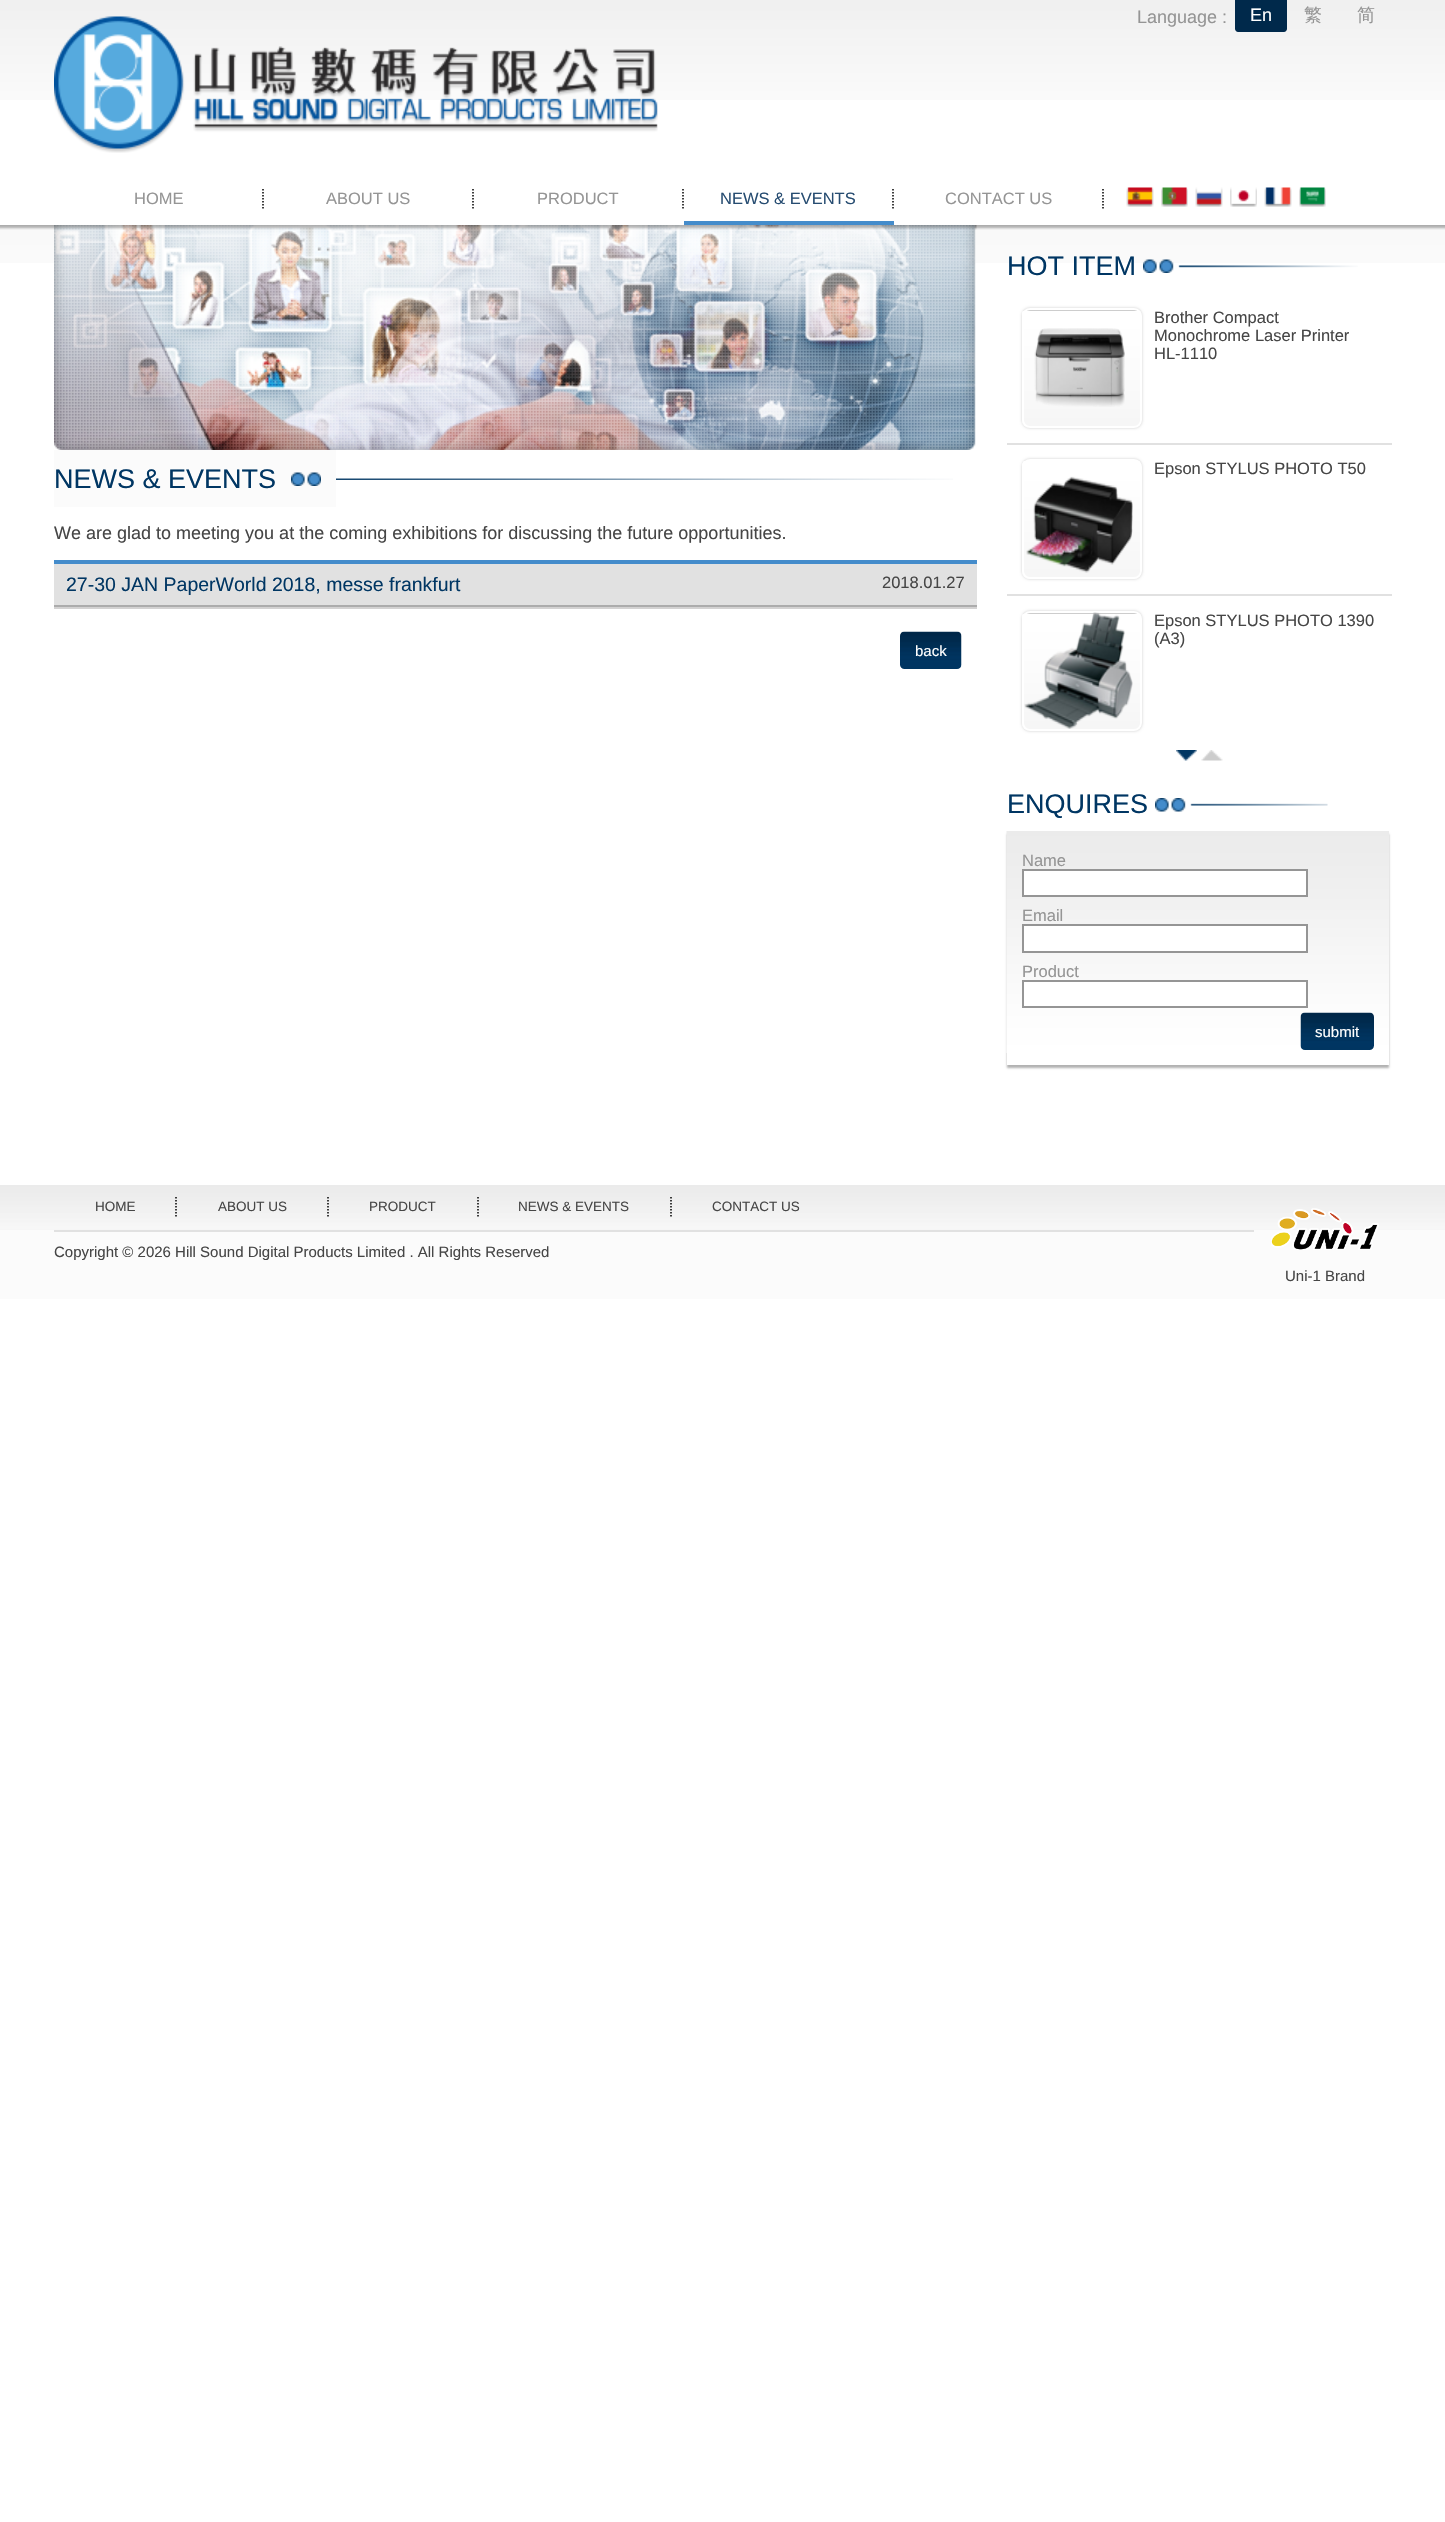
void draw(SkCanvas* canvas) {
  SkPaint paint;
  paint.setAntiAlias(true);
  auto face = [&](const char* family, int weight, float size, bool italic = false) {
    SkFontStyle style(weight, SkFontStyle::kNormal_Width,
      italic ? SkFontStyle::kItalic_Slant : SkFontStyle::kUpright_Slant);
    SkFont result(fontMgr->matchFamilyStyle(family, style), size);
    result.setSubpixel(true);
    return result;
  };
  auto paste = [&](const char* path, float x, float y, float w, float h) {
    auto image = SkImages::DeferredFromEncodedData(SkData::MakeFromFileName(path));
    canvas->drawImageRect(image, SkRect::MakeXYWH(x, y, w, h), SkSamplingOptions());
  };
  auto shape = [&](const char* data, bool evenOdd = false) {
    SkPath result = *SkParsePath::FromSVGString(data);
    if (evenOdd) result.setFillType(SkPathFillType::kEvenOdd);
    return result;
  };
  canvas->clear(0xffffffff);
  paste("img/1.png", 0, 0, 1445, 100);
  paste("img/2.png", 54, 16, 604, 137);
  paint.setColor(0xff00294b);
  canvas->drawPath(shape("M1235-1H1287V29C1287 30.5 1285.5 32 1284 32H1238C1236.5 32 1235 30.5 1235 29Z"), paint);
  paint.setStroke(true);
  paint.setStrokeWidth(1.5f);
  paint.setColor(0xff000000);
  paint.setPathEffect(SkDashPathEffect::Make({{1.5f, 1.5f}}, 0));
  canvas->drawPath(shape("M263 189V208.5"), paint);
  paint.setPathEffect(nullptr);
  paint.setPathEffect(SkDashPathEffect::Make({{1.5f, 1.5f}}, 0));
  canvas->drawPath(shape("M473 189V208.5"), paint);
  paint.setPathEffect(nullptr);
  paint.setPathEffect(SkDashPathEffect::Make({{1.5f, 1.5f}}, 0));
  canvas->drawPath(shape("M683 189V208.5"), paint);
  paint.setPathEffect(nullptr);
  paint.setStroke(false);
  paint.setColor(0xff448ccb);
  canvas->drawRect(SkRect::MakeXYWH(684, 221, 210, 4), paint);
  paint.setStroke(true);
  paint.setColor(0xff000000);
  paint.setPathEffect(SkDashPathEffect::Make({{1.5f, 1.5f}}, 0));
  canvas->drawPath(shape("M893 189V208.5"), paint);
  paint.setPathEffect(nullptr);
  paint.setPathEffect(SkDashPathEffect::Make({{1.5f, 1.5f}}, 0));
  canvas->drawPath(shape("M1103 189V208.5"), paint);
  paint.setPathEffect(nullptr);
  paste("img/3.png", 1126, 187, 28, 20);
  paste("img/4.png", 1161, 187, 27, 20);
  paste("img/5.png", 1195, 187, 28, 20);
  paste("img/6.png", 1230, 187, 27, 20);
  paste("img/7.png", 1264, 187, 28, 20);
  paste("img/8.png", 1299, 187, 27, 20);
  paste("img/9.png", 0, 225, 1445, 38);
  paste("img/10.png", 54, 225, 923, 225);
  paste("img/11.png", 336, 478, 617, 2);
  paint.setStroke(false);
  paint.setColor(0xfffbfbfb);
  canvas->drawRect(SkRect::MakeXYWH(54, 450, 282, 57), paint);
  paste("img/12.png", 291, 472, 30, 14);
  {
    const struct { float x, y, w, h; SkColor color; } items[] = {
      {54, 560, 923, 4, 0xff448ccb},
      {54, 607, 923, 2, 0xffd3d2d2},
      {54, 564, 923, 41, 0xffe1e1e1},
      {54, 605, 923, 2, 0xffacacac},
    };
    for (auto [x, y, w, h, color] : items) {
      paint.setColor(color);
      canvas->drawRect(SkRect::MakeXYWH(x, y, w, h), paint);
    }
  }
  paste("img/13.png", 900, 631, 62, 38);
  paste("img/14.png", 1143, 259, 215, 14);
  paint.setColor(0xffe1e1e1);
  canvas->drawRect(SkRect::MakeXYWH(1007, 443, 385, 2), paint);
  paint.setColor(0x33000000);
  paint.setMaskFilter(SkMaskFilter::MakeBlur(kNormal_SkBlurStyle, 1.5f));
  canvas->drawRoundRect(SkRect::MakeXYWH(1022, 308, 120, 120), 8, 8, paint);
  paint.setMaskFilter(nullptr);
  paste("img/15.png", 1022, 311, 120, 116);
  paint.setStroke(true);
  paint.setStrokeWidth(2);
  paint.setColor(0xffffffff);
  canvas->drawRoundRect(SkRect::MakeXYWH(1023, 309, 118, 118), 7, 7, paint);
  paste("img/16.png", 1034, 328, 91, 79);
  paint.setStroke(false);
  paint.setColor(0xffe1e1e1);
  canvas->drawRect(SkRect::MakeXYWH(1007, 594, 385, 2), paint);
  paint.setColor(0x33000000);
  paint.setMaskFilter(SkMaskFilter::MakeBlur(kNormal_SkBlurStyle, 1.5f));
  canvas->drawRoundRect(SkRect::MakeXYWH(1022, 459, 120, 120), 8, 8, paint);
  paint.setMaskFilter(nullptr);
  paste("img/17.png", 1022, 461, 120, 118);
  paint.setStroke(true);
  paint.setColor(0xffffffff);
  canvas->drawRoundRect(SkRect::MakeXYWH(1023, 460, 118, 118), 7, 7, paint);
  paste("img/18.png", 1026, 476, 107, 97);
  paint.setStroke(false);
  paint.setColor(0x33000000);
  paint.setMaskFilter(SkMaskFilter::MakeBlur(kNormal_SkBlurStyle, 1.5f));
  canvas->drawRoundRect(SkRect::MakeXYWH(1022, 611, 120, 120), 8, 8, paint);
  paint.setMaskFilter(nullptr);
  paste("img/15.png", 1022, 614, 120, 116);
  paint.setStroke(true);
  paint.setColor(0xffffffff);
  canvas->drawRoundRect(SkRect::MakeXYWH(1023, 612, 118, 118), 7, 7, paint);
  paste("img/19.png", 1024, 612, 109, 117);
  paste("img/20.png", 1176, 750, 21, 11);
  paste("img/21.png", 1201, 750, 22, 11);
  paste("img/22.png", 1155, 798, 173, 14);
  canvas->save();
  canvas->clipPath(shape("M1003 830H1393V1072H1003ZM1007 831H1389V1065H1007Z", true), true);
  paint.setStroke(false);
  paint.setColor(0xffb2b2b2);
  paint.setMaskFilter(SkMaskFilter::MakeBlur(kNormal_SkBlurStyle, 1));
  canvas->drawRect(SkRect::MakeXYWH(1007, 834, 382, 234), paint);
  paint.setMaskFilter(nullptr);
  canvas->restore();
  paste("img/23.png", 1006, 831, 383, 222);
  paint.setColor(0xffffffff);
  canvas->drawRect(SkRect::MakeXYWH(1023, 870, 284, 26), paint);
  paint.setStroke(true);
  paint.setColor(0xff959595);
  canvas->drawRect(SkRect::MakeXYWH(1023, 870, 284, 26), paint);
  paint.setStroke(false);
  paint.setColor(0xffffffff);
  canvas->drawRect(SkRect::MakeXYWH(1023, 925, 284, 27), paint);
  paint.setStroke(true);
  paint.setColor(0xff959595);
  canvas->drawRect(SkRect::MakeXYWH(1023, 925, 284, 27), paint);
  paint.setStroke(false);
  paint.setColor(0xffffffff);
  canvas->drawRect(SkRect::MakeXYWH(1023, 981, 284, 26), paint);
  paint.setStroke(true);
  paint.setColor(0xff959595);
  canvas->drawRect(SkRect::MakeXYWH(1023, 981, 284, 26), paint);
  paste("img/24.png", 1300, 1012, 74, 38);
  paint.setStroke(false);
  paint.setColor(0xfffbfbfb);
  canvas->drawRect(SkRect::MakeXYWH(0, 1230, 1445, 69), paint);
  paste("img/25.png", 0, 1185, 1445, 45);
  paint.setStroke(true);
  paint.setStrokeWidth(1.5f);
  paint.setColor(0xff000000);
  paint.setPathEffect(SkDashPathEffect::Make({{1.5f, 1.5f}}, 0));
  canvas->drawPath(shape("M176 1197V1216.5"), paint);
  paint.setPathEffect(nullptr);
  paint.setPathEffect(SkDashPathEffect::Make({{1.5f, 1.5f}}, 0));
  canvas->drawPath(shape("M328 1197V1216.5"), paint);
  paint.setPathEffect(nullptr);
  paint.setPathEffect(SkDashPathEffect::Make({{1.5f, 1.5f}}, 0));
  canvas->drawPath(shape("M478 1197V1216.5"), paint);
  paint.setPathEffect(nullptr);
  paint.setPathEffect(SkDashPathEffect::Make({{1.5f, 1.5f}}, 0));
  canvas->drawPath(shape("M671 1197V1216.5"), paint);
  paint.setPathEffect(nullptr);
  paint.setStroke(false);
  paint.setColor(0xffe1e1e1);
  canvas->drawRect(SkRect::MakeXYWH(54, 1230, 1200, 2), paint);
  paste("img/26.png", 1271, 1208, 108, 42);
  auto f0 = face("Liberation Sans", 400, 18);
  paint.setColor(0xff959595);
  canvas->drawString("Language :", 1137, 23, f0, paint);
  paint.setColor(0xffffffff);
  canvas->drawString("En", 1250, 21, f0, paint);
  auto f1 = face("WenQuanYi Zen Hei", 500, 18);
  paint.setColor(0xff959595);
  canvas->drawString("繁", 1304, 21, f1, paint);
  canvas->drawString("简", 1357, 21, f1, paint);
  auto f2 = face("Liberation Sans", 400, 16.5f);
  {
    const struct { const char* s; float x, y; } items[] = {
      {"HOME", 134, 204},
      {"ABOUT US", 326, 204},
      {"PRODUCT", 537, 204},
    };
    for (auto [s, x, y] : items) {
      canvas->drawString(s, x, y, f2, paint);
    }
  }
  paint.setColor(0xff264c71);
  canvas->drawString("NEWS & EVENTS", 720, 204, f2, paint);
  paint.setColor(0xff959595);
  canvas->drawString("CONTACT US", 945, 204, f2, paint);
  auto f3 = face("Liberation Sans", 400, 27);
  paint.setColor(0xff003663);
  canvas->drawString("NEWS & EVENTS", 54, 488, f3, paint);
  paint.setColor(0xff464646);
  canvas->drawString("We are glad to meeting you at the coming exhibitions for discussing the future opportunities.", 54, 539, f0, paint);
  auto f4 = face("Liberation Sans", 400, 19.5f);
  paint.setColor(0xff003663);
  canvas->drawString("27-30 JAN PaperWorld 2018, messe frankfurt", 66, 591, f4, paint);
  paint.setColor(0xff464646);
  canvas->drawString("2018.01.27", 882, 588, f2, paint);
  auto f5 = face("Liberation Sans", 400, 15);
  paint.setColor(0xffffffff);
  canvas->drawString("back", 915, 656, f5, paint);
  paint.setColor(0xff003663);
  canvas->drawString("HOT ITEM", 1007, 275, f3, paint);
  paint.setColor(0xff464646);
  {
    const struct { const char* s; float x, y; } items[] = {
      {"Brother Compact", 1154, 323},
      {"Monochrome Laser Printer", 1154, 341},
      {"HL-1110", 1154, 359},
      {"Epson STYLUS PHOTO T50", 1154, 474},
      {"Epson STYLUS PHOTO 1390", 1154, 626},
      {"(A3)", 1154, 644},
    };
    for (auto [s, x, y] : items) {
      canvas->drawString(s, x, y, f2, paint);
    }
  }
  paint.setColor(0xff003663);
  canvas->drawString("ENQUIRES", 1007, 813, f3, paint);
  paint.setColor(0xff959595);
  {
    const struct { const char* s; float x, y; } items[] = {
      {"Name", 1022, 866},
      {"Email", 1022, 921},
      {"Product", 1022, 977},
    };
    for (auto [s, x, y] : items) {
      canvas->drawString(s, x, y, f2, paint);
    }
  }
  paint.setColor(0xffffffff);
  canvas->drawString("submit", 1315, 1037, f5, paint);
  auto f6 = face("Liberation Sans", 400, 13.5f);
  paint.setColor(0xff464646);
  {
    const struct { const char* s; float x, y; } items[] = {
      {"HOME", 95, 1211},
      {"ABOUT US", 218, 1211},
      {"PRODUCT", 369, 1211},
      {"NEWS & EVENTS", 518, 1211},
      {"CONTACT US", 712, 1211},
    };
    for (auto [s, x, y] : items) {
      canvas->drawString(s, x, y, f6, paint);
    }
  }
  canvas->drawString("Copyright © 2026 Hill Sound Digital Products Limited . All Rights Reserved", 54, 1257, f5, paint);
  canvas->drawString("Uni-1 Brand", 1285, 1281, f5, paint);
}
